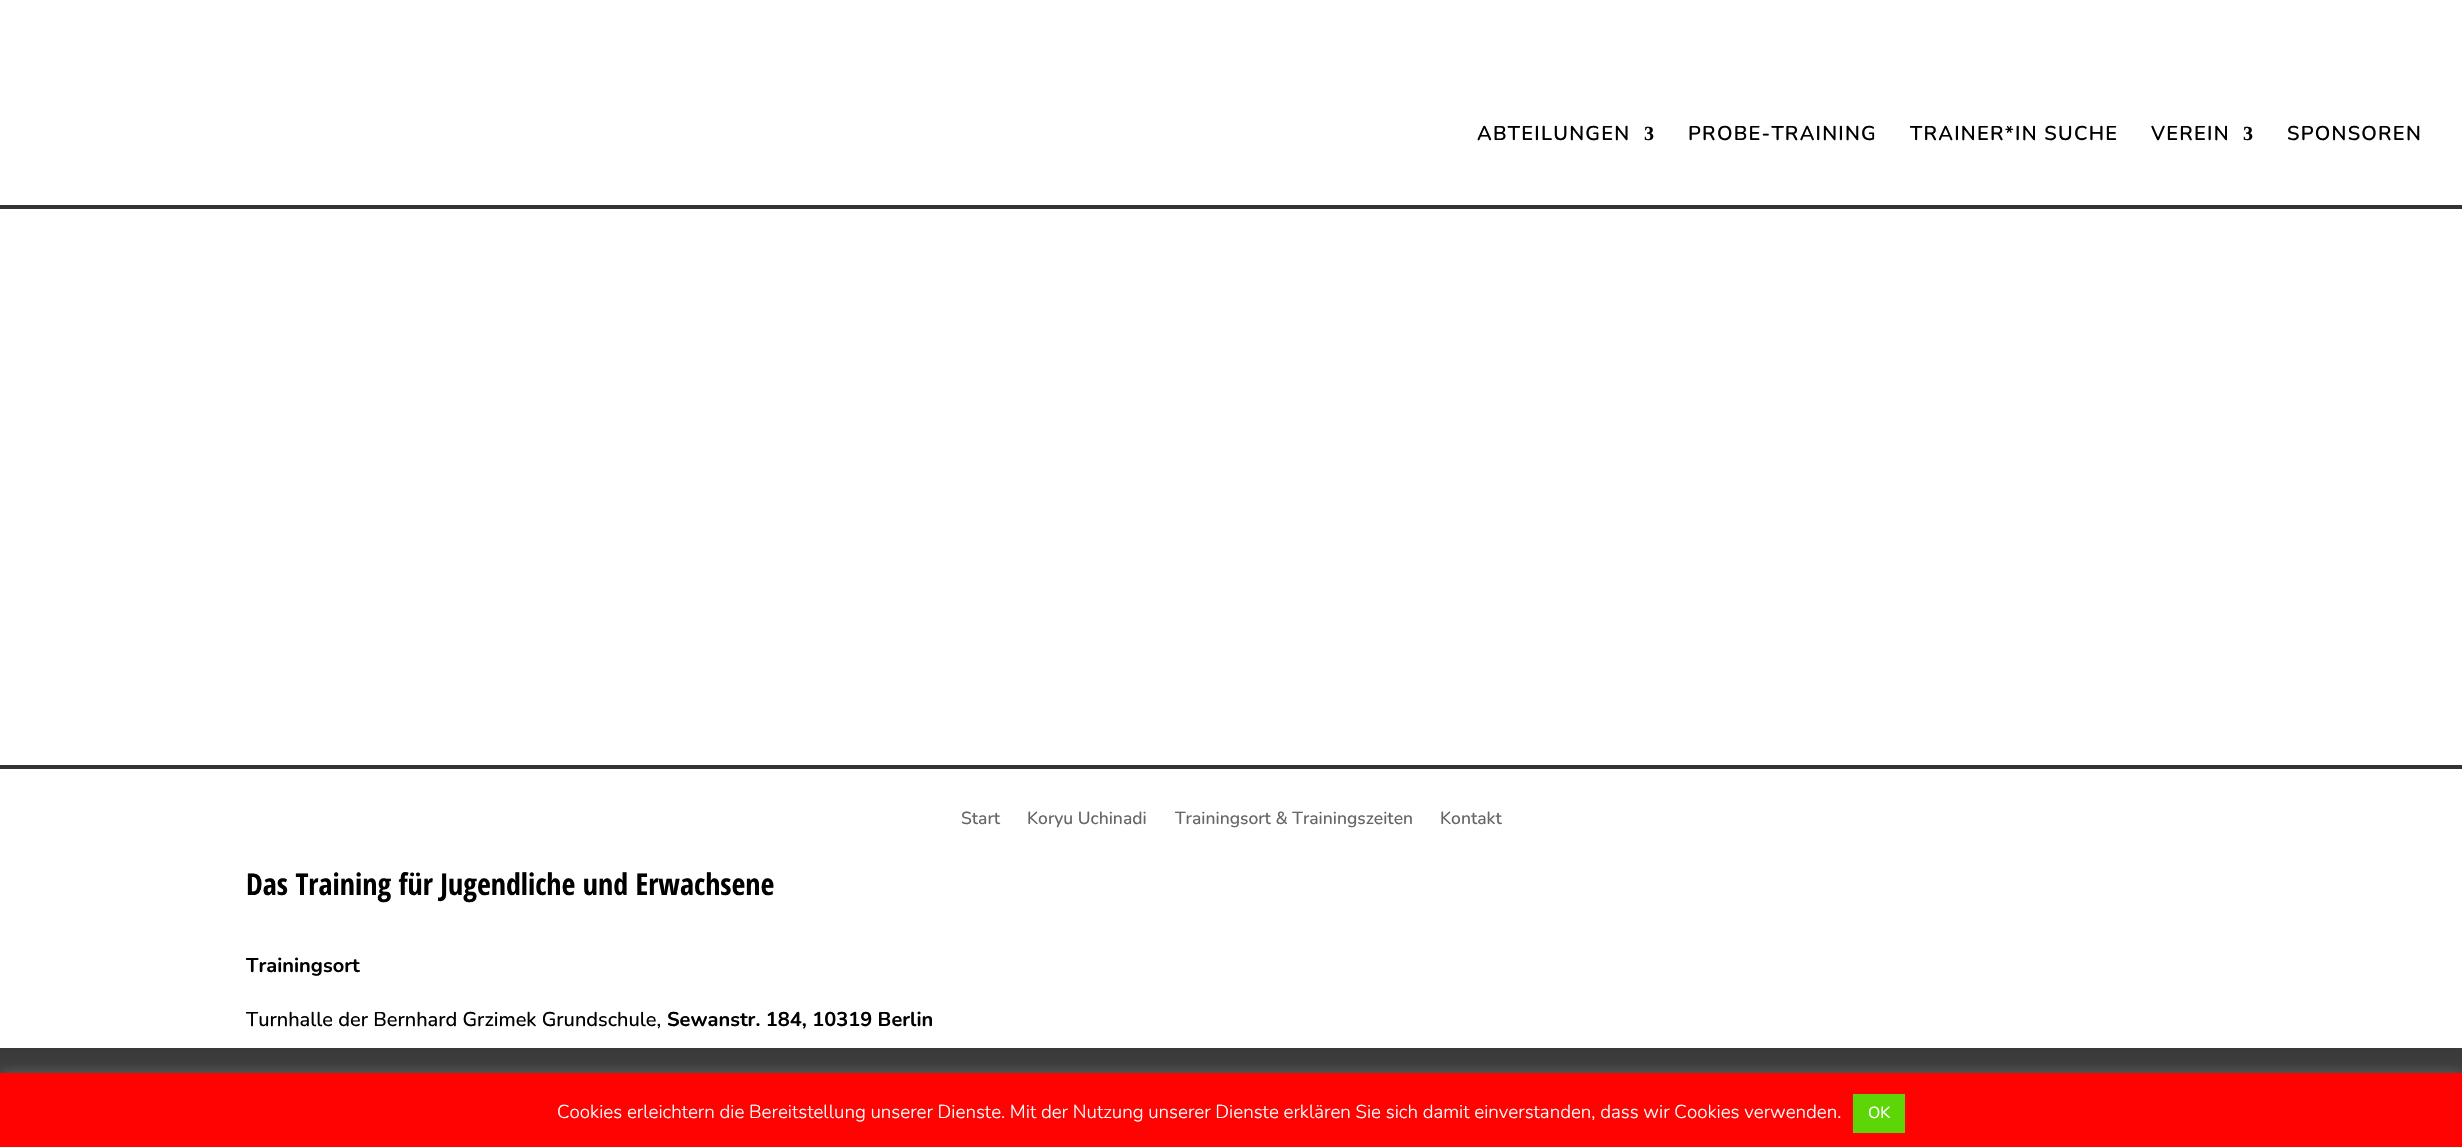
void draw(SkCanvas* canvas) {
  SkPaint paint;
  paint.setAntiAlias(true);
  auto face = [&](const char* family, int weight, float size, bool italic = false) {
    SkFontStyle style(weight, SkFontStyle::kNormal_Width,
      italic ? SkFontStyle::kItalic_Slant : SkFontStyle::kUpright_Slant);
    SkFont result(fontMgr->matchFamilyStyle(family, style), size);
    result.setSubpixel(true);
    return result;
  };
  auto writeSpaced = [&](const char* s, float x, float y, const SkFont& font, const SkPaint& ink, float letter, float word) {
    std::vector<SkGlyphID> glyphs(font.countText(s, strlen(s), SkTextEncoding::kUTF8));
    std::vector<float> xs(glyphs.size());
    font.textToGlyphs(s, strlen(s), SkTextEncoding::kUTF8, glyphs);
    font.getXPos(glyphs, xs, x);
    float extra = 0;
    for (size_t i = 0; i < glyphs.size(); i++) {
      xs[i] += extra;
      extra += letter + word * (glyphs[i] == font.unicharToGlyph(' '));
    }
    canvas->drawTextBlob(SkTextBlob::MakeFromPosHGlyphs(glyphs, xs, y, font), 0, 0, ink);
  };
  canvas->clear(0xffffffff);
  {
    const struct { float x, y, w, h; SkColor color; } items[] = {
      {0, 205, 2462, 4, 0xff333333},
      {0, 765, 2462, 4, 0xff333333},
      {0, 1048, 2462, 25, 0xff3a3a3a},
    };
    for (auto [x, y, w, h, color] : items) {
      paint.setColor(color);
      canvas->drawRect(SkRect::MakeXYWH(x, y, w, h), paint);
    }
  }
  paint.setColor(0x4dacabab);
  paint.setMaskFilter(SkMaskFilter::MakeBlur(kNormal_SkBlurStyle, 6));
  canvas->drawRect(SkRect::MakeXYWH(0, 1071, 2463, 75), paint);
  paint.setMaskFilter(nullptr);
  paint.setColor(0xffff0202);
  canvas->drawRect(SkRect::MakeXYWH(0, 1073, 2462, 74), paint);
  paint.setColor(0xff5cd606);
  canvas->drawRect(SkRect::MakeXYWH(1853, 1094, 52, 39), paint);
  auto f0 = face("Nunito", 600, 20);
  paint.setColor(0xff000000);
  writeSpaced("ABTEILUNGEN", 1477, 140, f0, paint, 1.25f, 0);
  auto f1 = face("Liberation Serif", 700, 20);
  writeSpaced("3", 1644, 140, f1, paint, 1.25f, 0);
  {
    const struct { const char* s; float x, y; } items[] = {
      {"PROBE-TRAINING", 1688, 140},
      {"TRAINER*IN SUCHE", 1910, 140},
      {"VEREIN", 2151, 140},
    };
    for (auto [s, x, y] : items) {
      writeSpaced(s, x, y, f0, paint, 1.25f, 0);
    }
  }
  writeSpaced("3", 2243, 140, f1, paint, 1.25f, 0);
  writeSpaced("SPONSOREN", 2287, 140, f0, paint, 1.25f, 0);
  auto f2 = face("Nunito", 500, 17.5f);
  paint.setColor(0xff666666);
  {
    const struct { const char* s; float x, y; } items[] = {
      {"Start", 961, 824},
      {"Koryu Uchinadi", 1027, 824},
      {"Trainingsort & Trainingszeiten", 1175, 824},
      {"Kontakt", 1440, 824},
    };
    for (auto [s, x, y] : items) {
      canvas->drawString(s, x, y, f2, paint);
    }
  }
  auto f3 = face("Open Sans Condensed", 700, 30);
  paint.setColor(0xff000000);
  canvas->drawString("Das Training für Jugendliche und Erwachsene", 246, 895, f3, paint);
  auto f4 = face("Nunito", 700, 20);
  canvas->drawString("Trainingsort", 246, 972, f4, paint);
  auto f5 = face("Nunito", 500, 20);
  canvas->drawString("Turnhalle der Bernhard Grzimek Grundschule,", 246, 1026, f5, paint);
  canvas->drawString("Sewanstr. 184, 10319 Berlin", 667, 1026, f4, paint);
  auto f6 = face("Nunito", 300, 18.75f);
  paint.setColor(0xffffffff);
  canvas->drawString("Cookies erleichtern die Bereitstellung unserer Dienste. Mit der Nutzung unserer Dienste erklären Sie sich damit einverstanden, dass wir Cookies verwenden.", 557, 1118, f6, paint);
  auto f7 = face("Nunito", 400, 16);
  canvas->drawString("OK", 1868, 1118, f7, paint);
}
